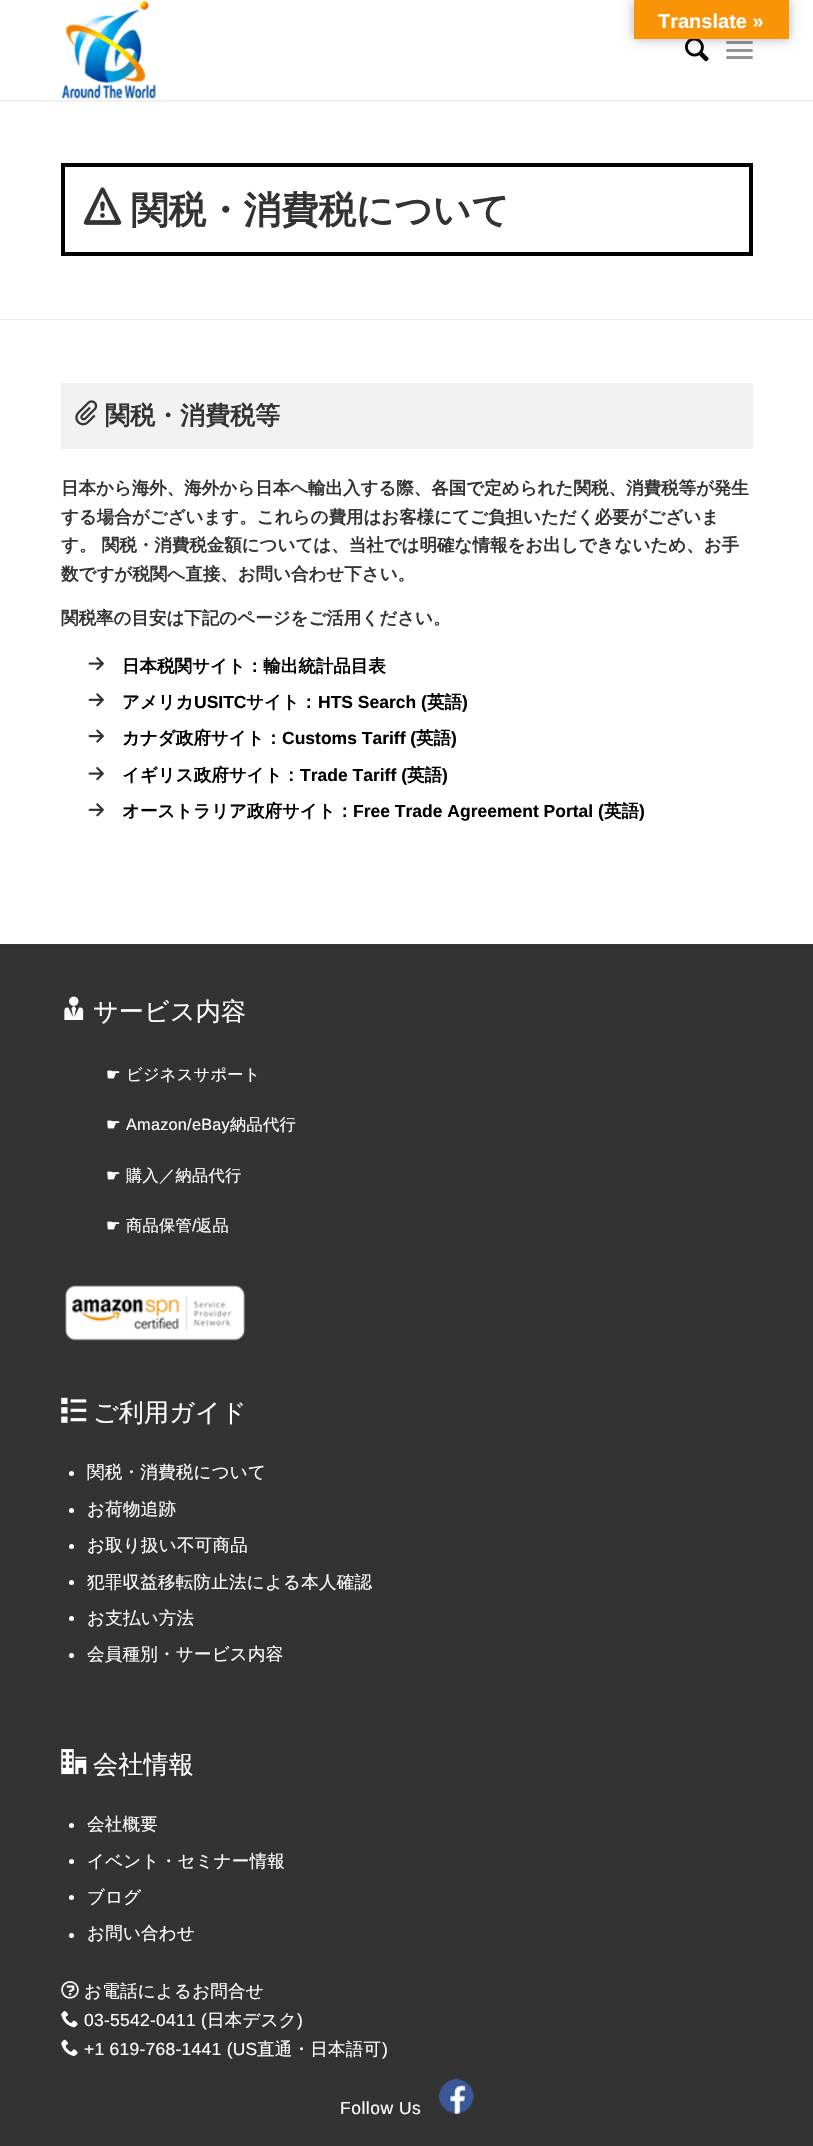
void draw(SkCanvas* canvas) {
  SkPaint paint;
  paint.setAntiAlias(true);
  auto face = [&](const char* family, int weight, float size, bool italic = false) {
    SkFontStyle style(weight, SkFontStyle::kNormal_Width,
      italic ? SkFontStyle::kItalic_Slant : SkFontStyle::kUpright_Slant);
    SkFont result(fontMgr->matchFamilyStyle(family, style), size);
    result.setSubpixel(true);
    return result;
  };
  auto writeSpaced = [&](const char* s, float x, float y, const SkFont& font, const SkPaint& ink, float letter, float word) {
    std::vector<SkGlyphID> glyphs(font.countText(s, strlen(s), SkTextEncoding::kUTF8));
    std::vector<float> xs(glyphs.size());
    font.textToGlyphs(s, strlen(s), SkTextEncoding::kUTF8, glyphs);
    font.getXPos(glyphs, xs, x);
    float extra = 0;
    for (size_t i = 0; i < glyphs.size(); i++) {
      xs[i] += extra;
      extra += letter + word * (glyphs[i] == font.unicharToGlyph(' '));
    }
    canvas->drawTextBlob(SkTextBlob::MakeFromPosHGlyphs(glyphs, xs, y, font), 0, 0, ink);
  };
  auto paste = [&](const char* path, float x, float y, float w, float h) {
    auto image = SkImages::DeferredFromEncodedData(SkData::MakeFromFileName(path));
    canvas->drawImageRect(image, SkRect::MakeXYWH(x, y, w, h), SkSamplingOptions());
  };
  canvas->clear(0xffffffff);
  paint.setColor(0x1a000000);
  paint.setMaskFilter(SkMaskFilter::MakeBlur(kNormal_SkBlurStyle, 1));
  canvas->drawRect(SkRect::MakeXYWH(-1, -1, 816, 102), paint);
  paint.setMaskFilter(nullptr);
  paint.setColor(0xffffffff);
  canvas->drawRect(SkRect::MakeXYWH(0, 0, 813, 100), paint);
  paste("img/2.png", 685, 39, 24, 23);
  paint.setColor(0xff969696);
  canvas->drawRoundRect(SkRect::MakeXYWH(726, 49, 27, 3), 1.5f, 1.5f, paint);
  canvas->drawRoundRect(SkRect::MakeXYWH(726, 41, 27, 3), 1.5f, 1.5f, paint);
  canvas->drawRoundRect(SkRect::MakeXYWH(726, 56, 27, 3), 1.5f, 1.5f, paint);
  paint.setColor(0x4d000000);
  paint.setMaskFilter(SkMaskFilter::MakeBlur(kNormal_SkBlurStyle, 5.5f));
  canvas->drawRect(SkRect::MakeXYWH(634, 0, 155, 39), paint);
  paint.setMaskFilter(nullptr);
  paint.setColor(0xfff89406);
  canvas->drawRect(SkRect::MakeXYWH(634, 0, 155, 39), paint);
  paste("img/1.png", 61, 0, 96, 99);
  paint.setStroke(true);
  paint.setStrokeWidth(4);
  paint.setColor(0xff000000);
  canvas->drawRect(SkRect::MakeXYWH(63, 165, 688, 89), paint);
  paste("img/3.png", 83, 187, 39, 38);
  paint.setStroke(false);
  paint.setColor(0xffebebeb);
  canvas->drawRect(SkRect::MakeXYWH(0, 319, 813, 1), paint);
  paint.setColor(0xfff1f1f1);
  canvas->drawRect(SkRect::MakeXYWH(61, 383, 692, 66), paint);
  paste("img/4.png", 75, 400, 23, 26);
  paste("img/5.png", 88, 657, 16, 14);
  paste("img/6.png", 88, 693, 16, 14);
  paste("img/7.png", 88, 729, 16, 14);
  paste("img/5.png", 88, 767, 16, 14);
  paste("img/6.png", 88, 803, 16, 14);
  paint.setColor(0xff35383c);
  canvas->drawRect(SkRect::MakeXYWH(0, 944, 813, 1), paint);
  paint.setColor(0xff333333);
  canvas->drawRect(SkRect::MakeXYWH(0, 945, 813, 1201), paint);
  paste("img/8.png", 64, 996, 20, 24);
  paste("img/9.png", 65, 1285, 181, 56);
  paste("img/10.png", 61, 1397, 26, 26);
  paint.setColor(0xffffffff);
  canvas->drawCircle(71.5f, 1473.5f, 2.5f, paint);
  canvas->drawCircle(71.5f, 1510.5f, 2.5f, paint);
  canvas->drawCircle(71.5f, 1546.5f, 2.5f, paint);
  canvas->drawCircle(71.5f, 1582.5f, 2.5f, paint);
  canvas->drawCircle(71.5f, 1618.5f, 2.5f, paint);
  canvas->drawCircle(71.5f, 1655.5f, 2.5f, paint);
  paste("img/11.png", 61, 1749, 26, 26);
  canvas->drawCircle(71.5f, 1825.5f, 2.5f, paint);
  canvas->drawCircle(71.5f, 1861.5f, 2.5f, paint);
  canvas->drawCircle(71.5f, 1897.5f, 2.5f, paint);
  canvas->drawCircle(71.5f, 1935.5f, 2.5f, paint);
  paste("img/12.png", 61, 1981, 18, 18);
  paste("img/13.png", 61, 2011, 17, 17);
  paste("img/14.png", 61, 2039, 17, 18);
  paste("img/15.png", 438, 2078, 36, 36);
  auto f0 = face("Liberation Sans", 700, 20);
  canvas->drawString("Translate »", 658, 28, f0, paint);
  auto f1 = face("WenQuanYi Zen Hei", 700, 37.5f);
  paint.setColor(0xff333333);
  canvas->drawString("関税・消費税について", 131, 223, f1, paint);
  auto f2 = face("WenQuanYi Zen Hei", 700, 25);
  canvas->drawString("関税・消費税等", 105, 424, f2, paint);
  auto f3 = face("WenQuanYi Zen Hei", 700, 17.5f);
  {
    const struct { const char* s; float x, y; } items[] = {
      {"日本から海外、海外から日本へ輸出入する際、各国で定められた関税、消費税等が発生", 61, 494},
      {"する場合がございます。これらの費用はお客様にてご負担いただく必要がございま", 61, 523},
      {"す。 関税・消費税金額については、当社では明確な情報をお出しできないため、お手", 61, 551},
      {"数ですが税関へ直接、お問い合わせ下さい。", 61, 580},
      {"関税率の目安は下記のページをご活用ください。", 61, 624},
    };
    for (auto [s, x, y] : items) {
      canvas->drawString(s, x, y, f3, paint);
    }
  }
  paint.setColor(0xff000000);
  canvas->drawString("日本税関サイト：輸出統計品目表", 122, 672, f3, paint);
  canvas->drawString("アメリカ", 122, 708, f3, paint);
  auto f4 = face("Liberation Sans", 700, 17.5f);
  canvas->drawString("USITC", 194, 708, f4, paint);
  canvas->drawString("サイト：", 246, 708, f3, paint);
  canvas->drawString("HTS Search (", 318, 708, f4, paint);
  canvas->drawString("英語", 427, 708, f3, paint);
  canvas->drawString(")", 462, 708, f4, paint);
  canvas->drawString("カナダ政府サイト：", 122, 744, f3, paint);
  canvas->drawString("Customs Tariff (", 282, 744, f4, paint);
  canvas->drawString("英語", 416, 744, f3, paint);
  canvas->drawString(")", 451, 744, f4, paint);
  canvas->drawString("イギリス政府サイト：", 122, 781, f3, paint);
  canvas->drawString("Trade Tariff (", 300, 781, f4, paint);
  canvas->drawString("英語", 407, 781, f3, paint);
  canvas->drawString(")", 442, 781, f4, paint);
  canvas->drawString("オーストラリア政府サイト：", 122, 817, f3, paint);
  canvas->drawString("Free Trade Agreement Portal (", 353, 817, f4, paint);
  canvas->drawString("英語", 604, 817, f3, paint);
  canvas->drawString(")", 639, 817, f4, paint);
  auto f5 = face("WenQuanYi Zen Hei", 500, 25);
  paint.setColor(0xffffffff);
  writeSpaced("サービス内容", 93, 1020, f5, paint, 0.25f, 0);
  auto f6 = face("DejaVu Sans", 400, 16.25f);
  writeSpaced("☛", 106, 1080, f6, paint, 0.25f, 0);
  auto f7 = face("WenQuanYi Zen Hei", 500, 16.25f);
  writeSpaced("ビジネスサポート", 126, 1080, f7, paint, 0.25f, 0);
  writeSpaced("☛", 106, 1130, f6, paint, 0.25f, 0);
  auto f8 = face("Liberation Sans", 400, 16.25f);
  writeSpaced("Amazon/eBay", 126, 1130, f8, paint, 0.25f, 0);
  writeSpaced("納品代行", 230, 1130, f7, paint, 0.25f, 0);
  writeSpaced("☛", 106, 1181, f6, paint, 0.25f, 0);
  writeSpaced("購入／納品代行", 126, 1181, f7, paint, 0.25f, 0);
  writeSpaced("☛", 106, 1231, f6, paint, 0.25f, 0);
  writeSpaced("商品保管", 126, 1231, f7, paint, 0.25f, 0);
  writeSpaced("/", 192, 1231, f8, paint, 0.25f, 0);
  writeSpaced("返品", 196, 1231, f7, paint, 0.25f, 0);
  writeSpaced("ご利用ガイド", 93, 1421, f5, paint, 0.25f, 0);
  auto f9 = face("WenQuanYi Zen Hei", 500, 17.5f);
  {
    const struct { const char* s; float x, y; } items[] = {
      {"関税・消費税について", 87, 1478},
      {"お荷物追跡", 87, 1515},
      {"お取り扱い不可商品", 87, 1551},
      {"犯罪収益移転防止法による本人確認", 87, 1588},
      {"お支払い方法", 87, 1624},
      {"会員種別・サービス内容", 87, 1660},
    };
    for (auto [s, x, y] : items) {
      writeSpaced(s, x, y, f9, paint, 0.25f, 0);
    }
  }
  writeSpaced("会社情報", 93, 1773, f5, paint, 0.25f, 0);
  {
    const struct { const char* s; float x, y; } items[] = {
      {"会社概要", 87, 1830},
      {"イベント・セミナー情報", 87, 1867},
      {"ブログ", 87, 1903},
      {"お問い合わせ", 87, 1939},
      {"お電話によるお問合せ", 84, 1997},
    };
    for (auto [s, x, y] : items) {
      writeSpaced(s, x, y, f9, paint, 0.25f, 0);
    }
  }
  auto f10 = face("Liberation Sans", 400, 17.5f);
  writeSpaced("03-5542-0411 (", 84, 2026, f10, paint, 0.25f, 0);
  writeSpaced("日本デスク", 207, 2026, f9, paint, 0.25f, 0);
  writeSpaced(")", 297, 2026, f10, paint, 0.25f, 0);
  writeSpaced("+1 619-768-1441 (US", 84, 2055, f10, paint, 0.25f, 0);
  writeSpaced("直通・日本語可", 257, 2055, f9, paint, 0.25f, 0);
  writeSpaced(")", 382, 2055, f10, paint, 0.25f, 0);
  writeSpaced("Follow Us", 340, 2114, f10, paint, 0.5f, 0);
}
